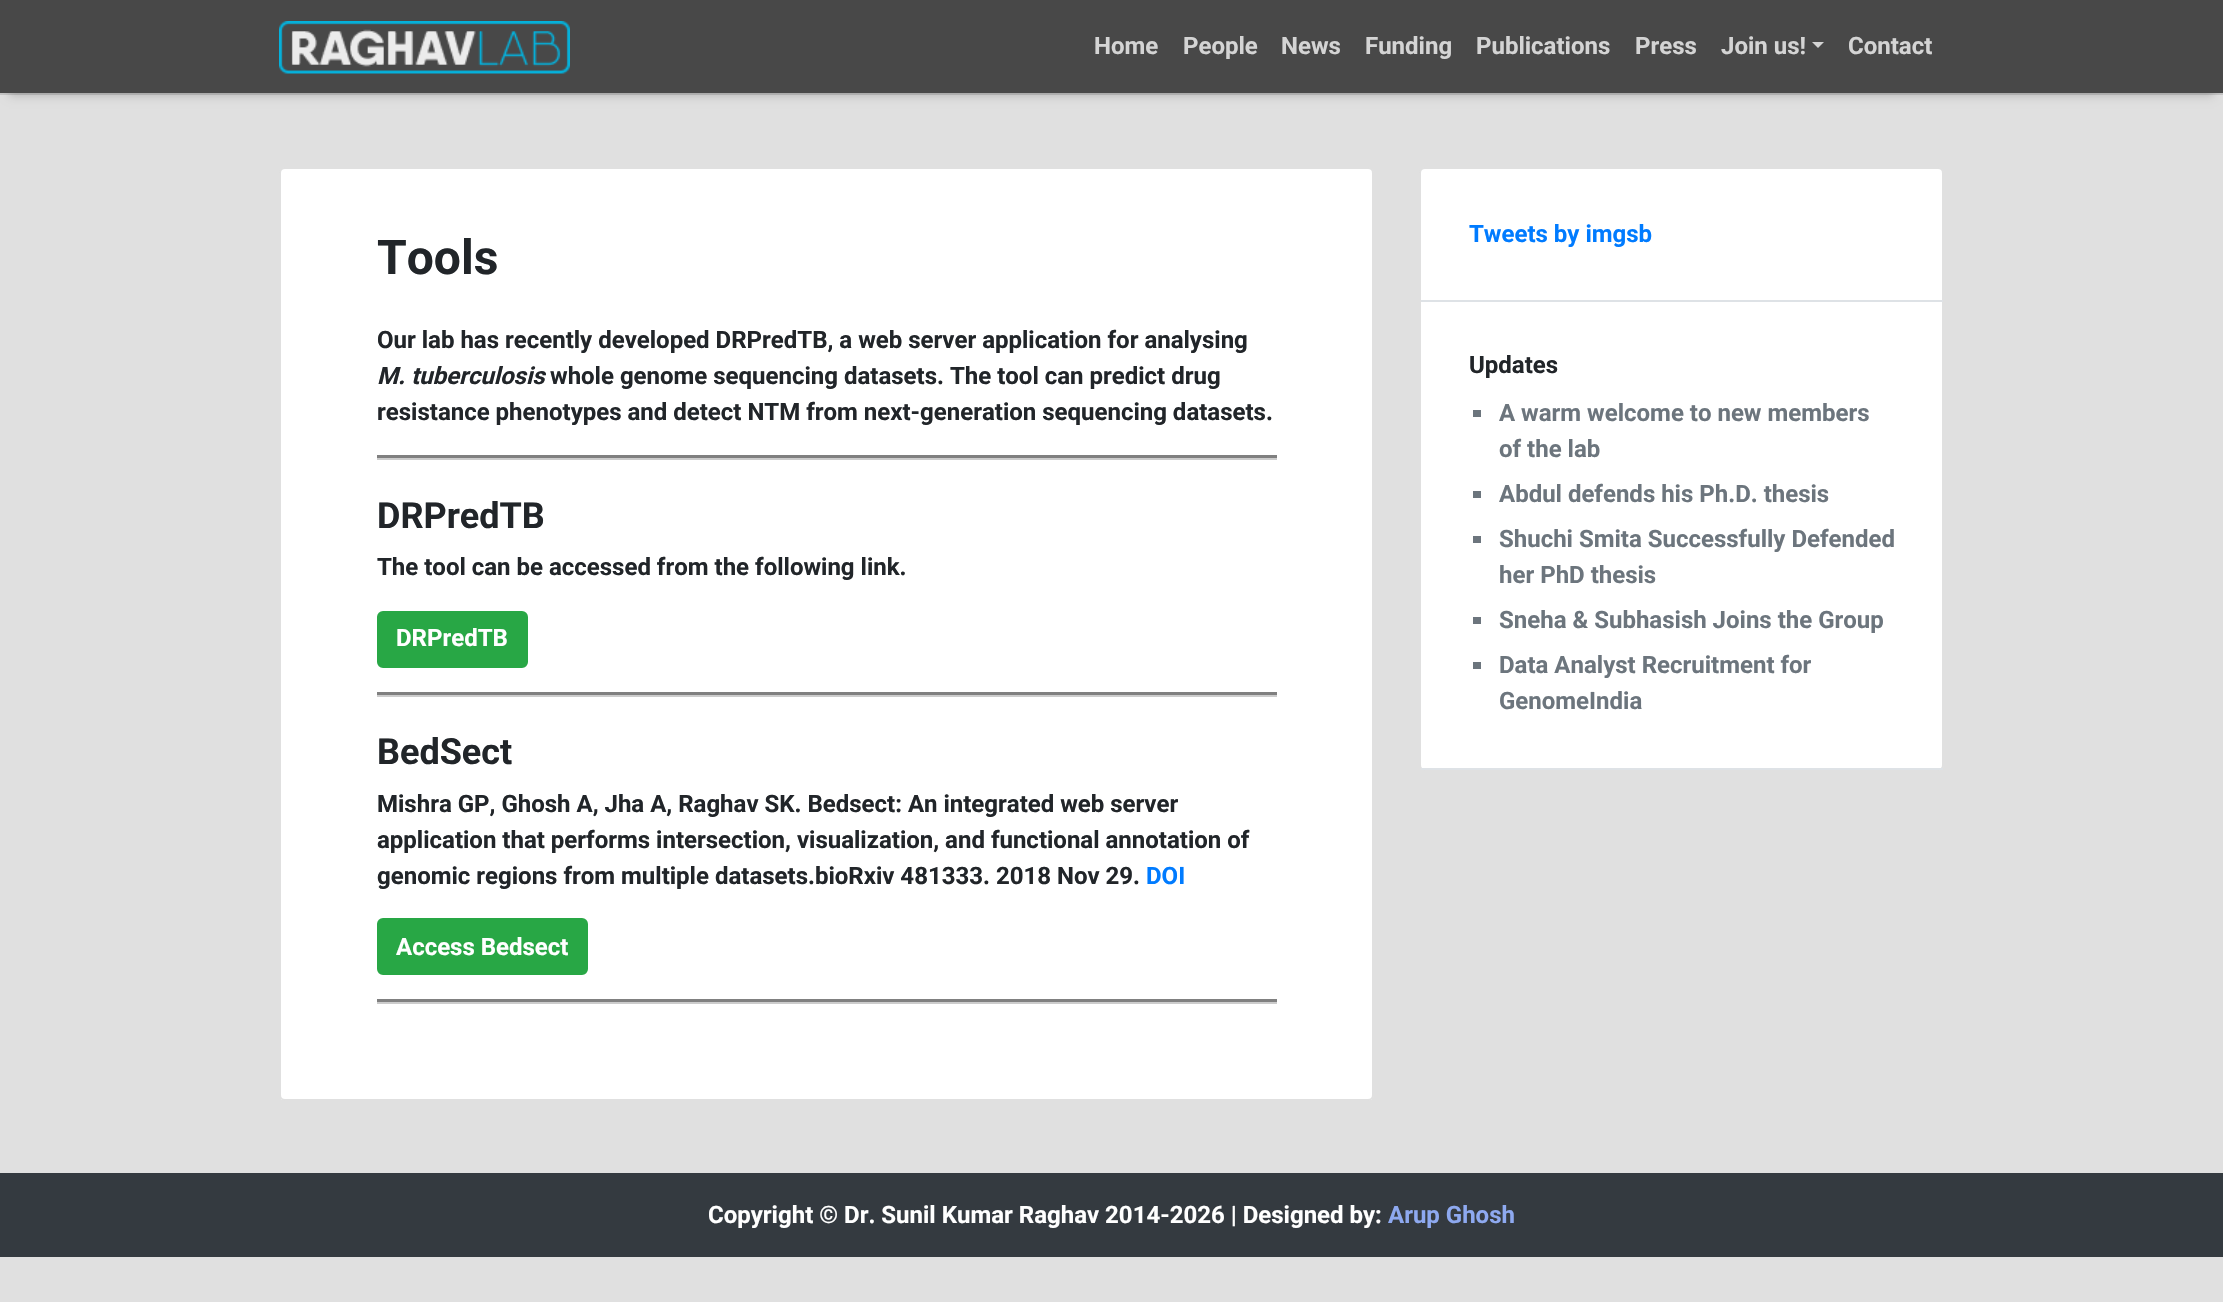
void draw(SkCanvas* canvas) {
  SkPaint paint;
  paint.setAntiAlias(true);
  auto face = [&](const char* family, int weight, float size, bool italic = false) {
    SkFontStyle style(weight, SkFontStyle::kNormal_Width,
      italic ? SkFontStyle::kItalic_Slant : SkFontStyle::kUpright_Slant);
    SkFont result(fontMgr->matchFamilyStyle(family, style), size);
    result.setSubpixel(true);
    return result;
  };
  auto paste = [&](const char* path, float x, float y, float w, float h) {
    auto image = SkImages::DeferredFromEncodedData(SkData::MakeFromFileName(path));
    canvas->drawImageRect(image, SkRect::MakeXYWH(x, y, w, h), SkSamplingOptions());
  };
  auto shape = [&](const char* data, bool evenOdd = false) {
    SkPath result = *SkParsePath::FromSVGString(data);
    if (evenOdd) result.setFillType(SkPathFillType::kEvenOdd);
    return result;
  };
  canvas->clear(0xffe0e0e0);
  paint.setColor(0xffc4c4c4);
  canvas->drawRect(SkRect::MakeXYWH(0, 93, 2223, 2), paint);
  paint.setColor(0x2e000000);
  paint.setMaskFilter(SkMaskFilter::MakeBlur(kNormal_SkBlurStyle, 4.5f));
  canvas->drawRect(SkRect::MakeXYWH(9, 21, 2205, 75), paint);
  paint.setMaskFilter(nullptr);
  paint.setColor(0xff484848);
  canvas->drawRect(SkRect::MakeXYWH(0, 0, 2223, 93), paint);
  paste("img/1.png", 279, 21, 291, 53);
  paint.setColor(0xffd4d4d4);
  canvas->drawPath(shape("M1812 42H1824L1818 48Z"), paint);
  paint.setColor(0xffffffff);
  canvas->drawRoundRect(SkRect::MakeXYWH(279, 167, 1095, 934), 6, 6, paint);
  paint.setStroke(true);
  paint.setStrokeWidth(2);
  paint.setColor(0x1f000000);
  canvas->drawRoundRect(SkRect::MakeXYWH(280, 168, 1093, 932), 5, 5, paint);
  paint.setStroke(false);
  paint.setColor(0xffcccccc);
  canvas->drawRect(SkRect::MakeXYWH(377, 458, 900, 2), paint);
  paint.setColor(0xff808080);
  canvas->drawRect(SkRect::MakeXYWH(377, 455, 900, 3), paint);
  paint.setColor(0xff28a745);
  canvas->drawRoundRect(SkRect::MakeXYWH(378, 612, 149, 55), 5, 5, paint);
  paint.setStroke(true);
  canvas->drawRoundRect(SkRect::MakeXYWH(378, 612, 149, 55), 5, 5, paint);
  paint.setStroke(false);
  paint.setColor(0xffcccccc);
  canvas->drawRect(SkRect::MakeXYWH(377, 695, 900, 2), paint);
  paint.setColor(0xff808080);
  canvas->drawRect(SkRect::MakeXYWH(377, 692, 900, 3), paint);
  paint.setColor(0xff28a745);
  canvas->drawRoundRect(SkRect::MakeXYWH(378, 919, 209, 55), 5, 5, paint);
  paint.setStroke(true);
  canvas->drawRoundRect(SkRect::MakeXYWH(378, 919, 209, 55), 5, 5, paint);
  paint.setStroke(false);
  paint.setColor(0xffcccccc);
  canvas->drawRect(SkRect::MakeXYWH(377, 1002, 900, 2), paint);
  paint.setColor(0xff808080);
  canvas->drawRect(SkRect::MakeXYWH(377, 999, 900, 3), paint);
  paint.setColor(0xffffffff);
  canvas->drawRoundRect(SkRect::MakeXYWH(1419, 167, 525, 604), 6, 6, paint);
  paint.setStroke(true);
  paint.setColor(0x1f000000);
  canvas->drawRoundRect(SkRect::MakeXYWH(1420, 168, 523, 602), 5, 5, paint);
  paint.setStroke(false);
  {
    const struct { float x, y, w, h; SkColor color; } items[] = {
      {1421, 300, 522, 2, 0xffdee2e6},
      {1421, 768, 522, 2, 0xffdee2e6},
      {1473, 410, 8, 7, 0xff6c757d},
      {1473, 491, 8, 7, 0xff6c757d},
      {1473, 536, 8, 7, 0xff6c757d},
      {1473, 617, 8, 7, 0xff6c757d},
      {1473, 662, 8, 7, 0xff6c757d},
      {0, 1173, 2223, 84, 0xff343a40},
    };
    for (auto [x, y, w, h, color] : items) {
      paint.setColor(color);
      canvas->drawRect(SkRect::MakeXYWH(x, y, w, h), paint);
    }
  }
  auto f0 = face("Roboto", 700, 24);
  paint.setColor(0xffd4d4d4);
  {
    const struct { const char* s; float x, y; } items[] = {
      {"Home", 1094, 54},
      {"People", 1183, 54},
      {"News", 1281, 54},
      {"Funding", 1365, 54},
      {"Publications", 1476, 54},
      {"Press", 1635, 54},
      {"Join us!", 1721, 54},
      {"Contact", 1848, 54},
    };
    for (auto [s, x, y] : items) {
      canvas->drawString(s, x, y, f0, paint);
    }
  }
  auto f1 = face("Roboto", 700, 48);
  paint.setColor(0xff212529);
  canvas->drawString("Tools", 377, 274, f1, paint);
  canvas->drawString("Our lab has recently developed DRPredTB, a web server application for analysing", 377, 348, f0, paint);
  auto f2 = face("Roboto", 700, 24, true);
  canvas->drawString("M. tuberculosis", 377, 384, f2, paint);
  canvas->drawString("whole genome sequencing datasets. The tool can predict drug", 550, 384, f0, paint);
  canvas->drawString("resistance phenotypes and detect NTM from next-generation sequencing datasets.", 377, 420, f0, paint);
  auto f3 = face("Roboto", 700, 36);
  canvas->drawString("DRPredTB", 377, 528, f3, paint);
  canvas->drawString("The tool can be accessed from the following link.", 377, 575, f0, paint);
  paint.setColor(0xffffffff);
  canvas->drawString("DRPredTB", 396, 646, f0, paint);
  paint.setColor(0xff212529);
  canvas->drawString("BedSect", 377, 764, f3, paint);
  {
    const struct { const char* s; float x, y; } items[] = {
      {"Mishra GP, Ghosh A, Jha A, Raghav SK. Bedsect: An integrated web server", 377, 812},
      {"application that performs intersection, visualization, and functional annotation of", 377, 848},
      {"genomic regions from multiple datasets.bioRxiv 481333. 2018 Nov 29.", 377, 884},
    };
    for (auto [s, x, y] : items) {
      canvas->drawString(s, x, y, f0, paint);
    }
  }
  paint.setColor(0xff007bff);
  canvas->drawString("DOI", 1146, 884, f0, paint);
  paint.setColor(0xffffffff);
  canvas->drawString("Access Bedsect", 396, 955, f0, paint);
  paint.setColor(0xff007bff);
  canvas->drawString("Tweets by imgsb", 1469, 242, f0, paint);
  paint.setColor(0xff212529);
  canvas->drawString("Updates", 1469, 373, f0, paint);
  paint.setColor(0xff6c757d);
  {
    const struct { const char* s; float x, y; } items[] = {
      {"A warm welcome to new members", 1499, 421},
      {"of the lab", 1499, 457},
      {"Abdul defends his Ph.D. thesis", 1499, 502},
      {"Shuchi Smita Successfully Defended", 1499, 547},
      {"her PhD thesis", 1499, 583},
      {"Sneha & Subhasish Joins the Group", 1499, 628},
      {"Data Analyst Recruitment for", 1499, 673},
      {"GenomeIndia", 1499, 709},
    };
    for (auto [s, x, y] : items) {
      canvas->drawString(s, x, y, f0, paint);
    }
  }
  paint.setColor(0xffffffff);
  canvas->drawString("Copyright © Dr. Sunil Kumar Raghav 2014-2026 | Designed by:", 708, 1223, f0, paint);
  paint.setColor(0xff8ea9f0);
  canvas->drawString("Arup Ghosh", 1388, 1223, f0, paint);
}
